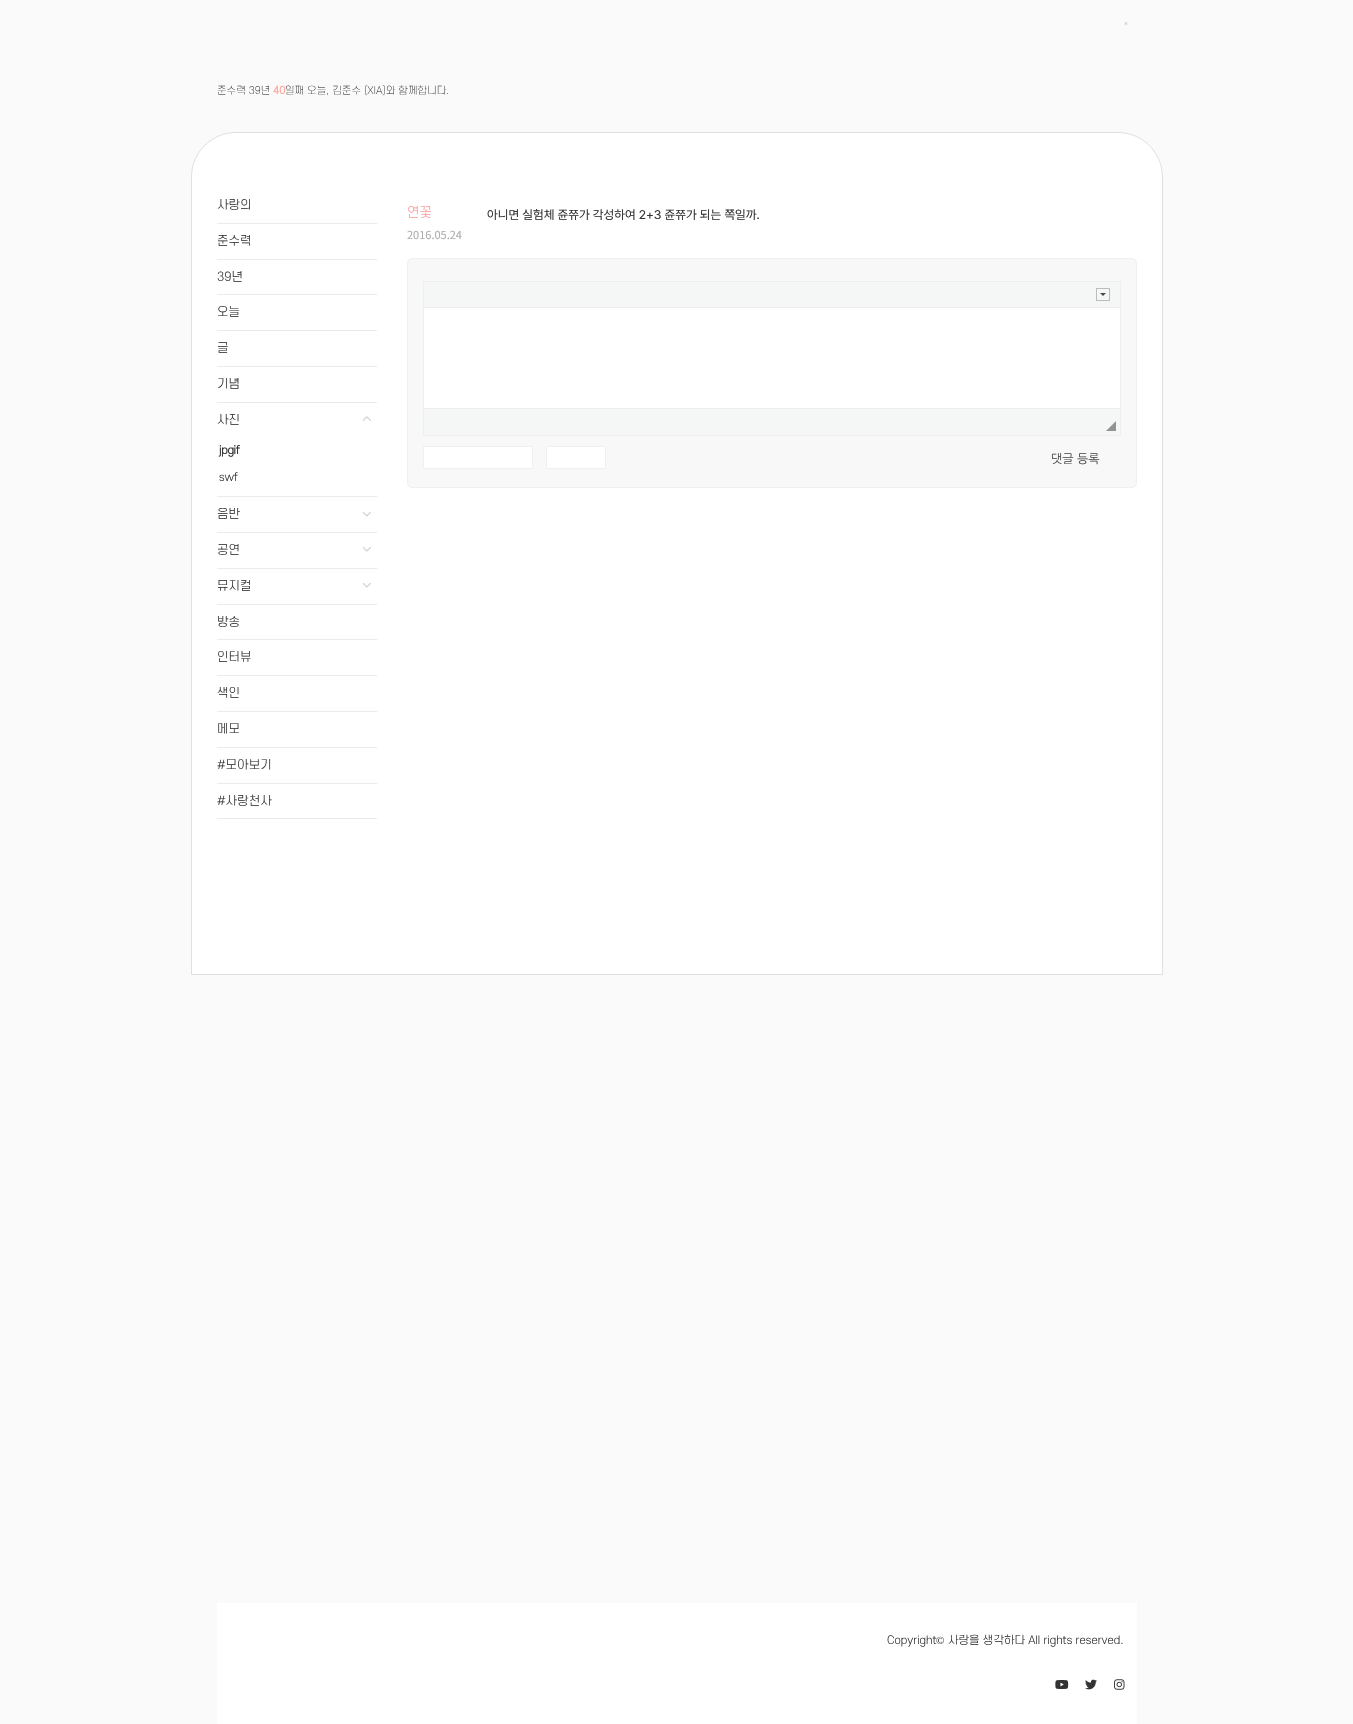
void draw(SkCanvas* canvas) {
  SkPaint paint;
  paint.setAntiAlias(true);
  auto face = [&](const char* family, int weight, float size, bool italic = false) {
    SkFontStyle style(weight, SkFontStyle::kNormal_Width,
      italic ? SkFontStyle::kItalic_Slant : SkFontStyle::kUpright_Slant);
    SkFont result(fontMgr->matchFamilyStyle(family, style), size);
    result.setSubpixel(true);
    return result;
  };
  auto writeSpaced = [&](const char* s, float x, float y, const SkFont& font, const SkPaint& ink, float letter, float word) {
    std::vector<SkGlyphID> glyphs(font.countText(s, strlen(s), SkTextEncoding::kUTF8));
    std::vector<float> xs(glyphs.size());
    font.textToGlyphs(s, strlen(s), SkTextEncoding::kUTF8, glyphs);
    font.getXPos(glyphs, xs, x);
    float extra = 0;
    for (size_t i = 0; i < glyphs.size(); i++) {
      xs[i] += extra;
      extra += letter + word * (glyphs[i] == font.unicharToGlyph(' '));
    }
    canvas->drawTextBlob(SkTextBlob::MakeFromPosHGlyphs(glyphs, xs, y, font), 0, 0, ink);
  };
  auto paste = [&](const char* path, float x, float y, float w, float h) {
    auto image = SkImages::DeferredFromEncodedData(SkData::MakeFromFileName(path));
    canvas->drawImageRect(image, SkRect::MakeXYWH(x, y, w, h), SkSamplingOptions());
  };
  auto shape = [&](const char* data, bool evenOdd = false) {
    SkPath result = *SkParsePath::FromSVGString(data);
    if (evenOdd) result.setFillType(SkPathFillType::kEvenOdd);
    return result;
  };
  canvas->clear(0xfffafafa);
  paint.setColor(0xffffffff);
  canvas->drawPath(shape("M236 132.5H1118C1142.5 132.5 1162.5 152.5 1162.5 177V974.5H191.5V177C191.5 152.5 211.5 132.5 236 132.5Z"), paint);
  paint.setStroke(true);
  paint.setStrokeWidth(1);
  paint.setColor(0xffe0e0e0);
  canvas->drawPath(shape("M236 132.5H1118C1142.5 132.5 1162.5 152.5 1162.5 177V974.5H191.5V177C191.5 152.5 211.5 132.5 236 132.5Z"), paint);
  paint.setStroke(false);
  {
    const struct { float x, y, w, h; SkColor color; } items[] = {
      {217, 223, 160, 1, 0xffebebeb},
      {217, 259, 160, 1, 0xffebebeb},
      {217, 294, 160, 1, 0xffebebeb},
      {217, 330, 160, 1, 0xffebebeb},
      {217, 366, 160, 1, 0xffebebeb},
      {217, 402, 160, 1, 0xffebebeb},
      {217, 496, 160, 1, 0xffebebeb},
    };
    for (auto [x, y, w, h, color] : items) {
      paint.setColor(color);
      canvas->drawRect(SkRect::MakeXYWH(x, y, w, h), paint);
    }
  }
  paste("img/1.png", 362, 416, 9, 5);
  canvas->drawRect(SkRect::MakeXYWH(217, 532, 160, 1), paint);
  paste("img/2.png", 362, 512, 9, 5);
  canvas->drawRect(SkRect::MakeXYWH(217, 568, 160, 1), paint);
  paste("img/2.png", 362, 547, 9, 5);
  canvas->drawRect(SkRect::MakeXYWH(217, 604, 160, 1), paint);
  paste("img/2.png", 362, 583, 9, 5);
  {
    const struct { float x, y, w, h; SkColor color; } items[] = {
      {217, 639, 160, 1, 0xffebebeb},
      {217, 675, 160, 1, 0xffebebeb},
      {217, 711, 160, 1, 0xffebebeb},
      {217, 747, 160, 1, 0xffebebeb},
      {217, 783, 160, 1, 0xffebebeb},
      {217, 818, 160, 1, 0xffebebeb},
    };
    for (auto [x, y, w, h, color] : items) {
      paint.setColor(color);
      canvas->drawRect(SkRect::MakeXYWH(x, y, w, h), paint);
    }
  }
  paint.setColor(0xfff8f8f8);
  canvas->drawRoundRect(SkRect::MakeXYWH(407.5f, 258.5f, 729, 229), 4.5f, 4.5f, paint);
  paint.setStroke(true);
  paint.setColor(0xfff0f0f0);
  canvas->drawRoundRect(SkRect::MakeXYWH(407.5f, 258.5f, 729, 229), 4.5f, 4.5f, paint);
  paint.setColor(0xffeeeeee);
  canvas->drawRect(SkRect::MakeXYWH(423.5f, 281.5f, 697, 154), paint);
  paint.setStroke(false);
  {
    const struct { float x, y, w, h; SkColor color; } items[] = {
      {424, 308, 696, 100, 0xffffffff},
      {424, 282, 696, 25, 0xfff5f6f6},
      {424, 307, 696, 1, 0xffeeeeee},
    };
    for (auto [x, y, w, h, color] : items) {
      paint.setColor(color);
      canvas->drawRect(SkRect::MakeXYWH(x, y, w, h), paint);
    }
  }
  paint.setStroke(true);
  paint.setColor(0xffbcbcbc);
  canvas->drawRect(SkRect::MakeXYWH(1096.5f, 288.5f, 13, 12), paint);
  paint.setStroke(false);
  paint.setColor(0xff484848);
  canvas->drawPath(shape("M1100 293H1106L1103 296Z"), paint);
  paint.setColor(0xfff5f6f6);
  canvas->drawRect(SkRect::MakeXYWH(424, 409, 696, 26), paint);
  paint.setColor(0xffeeeeee);
  canvas->drawRect(SkRect::MakeXYWH(424, 408, 696, 1), paint);
  paint.setColor(0xff939393);
  canvas->drawPath(shape("M1116 421V431H1106Z"), paint);
  paint.setColor(0xffffffff);
  canvas->drawRect(SkRect::MakeXYWH(423.5f, 446.5f, 109, 22), paint);
  paint.setStroke(true);
  paint.setColor(0xfff0f0f0);
  canvas->drawRect(SkRect::MakeXYWH(423.5f, 446.5f, 109, 22), paint);
  paint.setStroke(false);
  paint.setColor(0xffffffff);
  canvas->drawRect(SkRect::MakeXYWH(546.5f, 446.5f, 59, 22), paint);
  paint.setStroke(true);
  paint.setColor(0xfff0f0f0);
  canvas->drawRect(SkRect::MakeXYWH(546.5f, 446.5f, 59, 22), paint);
  paint.setStroke(false);
  paint.setColor(0xffffffff);
  canvas->drawRect(SkRect::MakeXYWH(217, 1603, 920, 121), paint);
  paste("img/3.png", 1055, 1680, 14, 9);
  paste("img/4.png", 1085, 1679, 12, 11);
  paste("img/5.png", 1114, 1679, 11, 11);
  auto f0 = face("Hepta Slab", 200, 9);
  paint.setColor(0xffcccccc);
  canvas->drawString("*", 1124, 29, f0, paint);
  auto f1 = face("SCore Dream", 200, 10);
  paint.setColor(0xff333333);
  canvas->drawString("준수력 39년", 217, 94, f1, paint);
  auto f2 = face("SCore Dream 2", 700, 10);
  paint.setColor(0xffffb0a6);
  canvas->drawString("40", 273, 94, f2, paint);
  paint.setColor(0xff333333);
  canvas->drawString("일째 오늘, 김준수 (XIA)와 함께합니다.", 285, 94, f1, paint);
  auto f3 = face("SCore Dream", 300, 12);
  {
    const struct { const char* s; float x, y; } items[] = {
      {"사랑의", 217, 209},
      {"준수력", 217, 245},
      {"39년", 217, 281},
      {"오늘", 217, 316},
      {"글", 217, 352},
      {"기념", 217, 388},
      {"사진", 217, 424},
    };
    for (auto [s, x, y] : items) {
      canvas->drawString(s, x, y, f3, paint);
    }
  }
  auto f4 = face("SCore Dream", 700, 11);
  writeSpaced("jpgif", 219, 454, f4, paint, -0.25f, 0);
  auto f5 = face("SCore Dream", 300, 11);
  writeSpaced("swf", 219, 481, f5, paint, -0.25f, 0);
  {
    const struct { const char* s; float x, y; } items[] = {
      {"음반", 217, 518},
      {"공연", 217, 554},
      {"뮤지컬", 217, 590},
      {"방송", 217, 626},
      {"인터뷰", 217, 661},
      {"색인", 217, 697},
      {"메모", 217, 733},
      {"#모아보기", 217, 769},
      {"#사랑천사", 217, 805},
    };
    for (auto [s, x, y] : items) {
      canvas->drawString(s, x, y, f3, paint);
    }
  }
  auto f6 = face("SCore Dream", 300, 13);
  paint.setColor(0xffff9999);
  canvas->drawString("연꽃", 407, 217, f6, paint);
  auto f7 = face("Noto Sans KR", 400, 11);
  paint.setColor(0xffadadad);
  canvas->drawString("2016.05.24", 407, 239, f7, paint);
  auto f8 = face("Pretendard", 400, 12.4f);
  paint.setColor(0xff333333);
  canvas->drawString("아니면 실험체 쥰쮸가 각성하여 2+3 쥰쮸가 되는 쪽일까.", 487, 219, f8, paint);
  auto f9 = face("NanumGothic", 400, 12);
  paint.setColor(0xff4d4d4d);
  canvas->drawString("댓글 등록", 1051, 463, f9, paint);
  paint.setColor(0xff333333);
  canvas->drawString("Copyright", 887, 1644, f5, paint);
  auto f10 = face("Liberation Serif", 400, 11);
  canvas->drawString("©", 936, 1644, f10, paint);
  canvas->drawString("사랑을 생각하다 All rights reserved.", 948, 1644, f5, paint);
}
